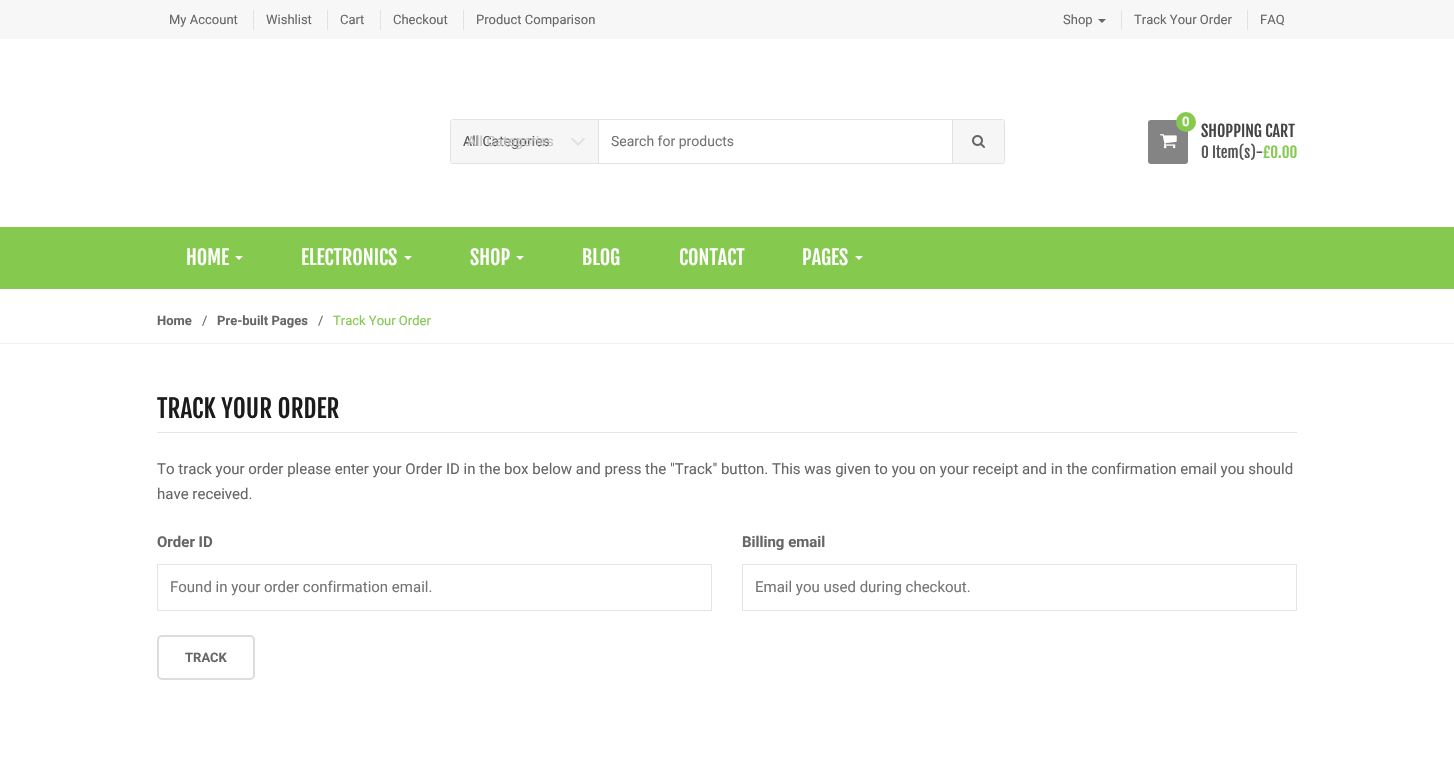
void draw(SkCanvas* canvas) {
  SkPaint paint;
  paint.setAntiAlias(true);
  auto face = [&](const char* family, int weight, float size, bool italic = false) {
    SkFontStyle style(weight, SkFontStyle::kNormal_Width,
      italic ? SkFontStyle::kItalic_Slant : SkFontStyle::kUpright_Slant);
    SkFont result(fontMgr->matchFamilyStyle(family, style), size);
    result.setSubpixel(true);
    return result;
  };
  auto paste = [&](const char* path, float x, float y, float w, float h) {
    auto image = SkImages::DeferredFromEncodedData(SkData::MakeFromFileName(path));
    canvas->drawImageRect(image, SkRect::MakeXYWH(x, y, w, h), SkSamplingOptions());
  };
  auto shape = [&](const char* data, bool evenOdd = false) {
    SkPath result = *SkParsePath::FromSVGString(data);
    if (evenOdd) result.setFillType(SkPathFillType::kEvenOdd);
    return result;
  };
  canvas->clear(0xffffffff);
  {
    const struct { float x, y, w, h; SkColor color; } items[] = {
      {0, 0, 1454, 39, 0xfff7f7f7},
      {253, 10, 1, 20, 0xffe2e2e2},
      {327, 10, 1, 20, 0xffe2e2e2},
      {380, 10, 1, 20, 0xffe2e2e2},
      {463, 10, 1, 20, 0xffe2e2e2},
    };
    for (auto [x, y, w, h, color] : items) {
      paint.setColor(color);
      canvas->drawRect(SkRect::MakeXYWH(x, y, w, h), paint);
    }
  }
  paint.setColor(0xff666666);
  canvas->drawPath(shape("M1098 19H1106L1102 23Z"), paint);
  paint.setColor(0xffe2e2e2);
  canvas->drawRect(SkRect::MakeXYWH(1121, 10, 1, 20), paint);
  canvas->drawRect(SkRect::MakeXYWH(1247, 10, 1, 20), paint);
  paint.setStroke(true);
  paint.setStrokeWidth(1);
  canvas->drawRoundRect(SkRect::MakeXYWH(450.5f, 119.5f, 554, 44), 2.5f, 2.5f, paint);
  paint.setStroke(false);
  paint.setColor(0xfff6f6f6);
  canvas->drawPath(shape("M455 120H599V163H455C453 163 451 161 451 159V124C451 122 453 120 455 120Z"), paint);
  paint.setColor(0xffe2e2e2);
  canvas->drawRect(SkRect::MakeXYWH(598, 120, 1, 43), paint);
  paste("img/1.png", 571, 138, 14, 8);
  canvas->drawRect(SkRect::MakeXYWH(952, 120, 1, 43), paint);
  paint.setColor(0xfff6f6f6);
  canvas->drawPath(shape("M953 120H1000C1002 120 1004 122 1004 124V159C1004 161 1002 163 1000 163H953Z"), paint);
  paste("img/2.png", 972, 135, 13, 13);
  paint.setColor(0xff848484);
  canvas->drawRoundRect(SkRect::MakeXYWH(1148, 120, 40, 44), 3, 3, paint);
  paint.setColor(0xff85c94f);
  canvas->drawCircle(1186, 122, 10, paint);
  paste("img/3.png", 1160, 134, 17, 15);
  canvas->drawRect(SkRect::MakeXYWH(0, 227, 1454, 62), paint);
  paint.setColor(0xffffffff);
  canvas->drawPath(shape("M235 256H243L239 260Z"), paint);
  canvas->drawPath(shape("M404 256H412L408 260Z"), paint);
  canvas->drawPath(shape("M516 256H524L520 260Z"), paint);
  canvas->drawPath(shape("M855 256H863L859 260Z"), paint);
  paint.setColor(0xfff2f2f2);
  canvas->drawRect(SkRect::MakeXYWH(0, 343, 1454, 1), paint);
  paint.setColor(0xffe5e5e5);
  canvas->drawRect(SkRect::MakeXYWH(157, 432, 1140, 1), paint);
  paint.setStroke(true);
  canvas->drawRect(SkRect::MakeXYWH(157.5f, 564.5f, 554, 46), paint);
  canvas->drawRect(SkRect::MakeXYWH(742.5f, 564.5f, 554, 46), paint);
  paint.setStrokeWidth(2);
  paint.setColor(0xffdddddd);
  canvas->drawRoundRect(SkRect::MakeXYWH(158, 636, 96, 43), 4, 4, paint);
  auto f0 = face("Roboto", 400, 13);
  paint.setStroke(false);
  paint.setColor(0xff666666);
  {
    const struct { const char* s; float x, y; } items[] = {
      {"My Account", 169, 24},
      {"Wishlist", 266, 24},
      {"Cart", 340, 24},
      {"Checkout", 393, 24},
      {"Product Comparison", 476, 24},
      {"Shop", 1063, 24},
      {"Track Your Order", 1134, 24},
      {"FAQ", 1260, 24},
    };
    for (auto [s, x, y] : items) {
      canvas->drawString(s, x, y, f0, paint);
    }
  }
  auto f1 = face("Roboto", 400, 14);
  paint.setColor(0xff555555);
  canvas->drawString("All Categories", 463, 146, f1, paint);
  paint.setColor(0xffc1c1c1);
  canvas->drawString("All Categories", 467, 146, f1, paint);
  paint.setColor(0xff757575);
  canvas->drawString("Search for products", 611, 146, f1, paint);
  auto f2 = face("Roboto", 700, 13);
  paint.setColor(0xffffffff);
  canvas->drawString("0", 1182, 126, f2, paint);
  auto f3 = face("Fjalla One", 400, 16);
  paint.setColor(0xff444444);
  canvas->drawString("SHOPPING CART", 1201, 137, f3, paint);
  auto f4 = face("Fjalla One", 400, 15);
  paint.setColor(0xff555555);
  canvas->drawString("0 Item(s)-", 1201, 158, f4, paint);
  paint.setColor(0xff85c94f);
  canvas->drawString("£0.00", 1263, 158, f4, paint);
  auto f5 = face("Fjalla One", 400, 20);
  paint.setColor(0xffffffff);
  {
    const struct { const char* s; float x, y; } items[] = {
      {"HOME", 186, 265},
      {"ELECTRONICS", 301, 265},
      {"SHOP", 470, 265},
      {"BLOG", 582, 265},
      {"CONTACT", 679, 265},
      {"PAGES", 802, 265},
    };
    for (auto [s, x, y] : items) {
      canvas->drawString(s, x, y, f5, paint);
    }
  }
  paint.setColor(0xff666666);
  canvas->drawString("Home", 157, 325, f2, paint);
  canvas->drawString("/", 202, 325, f0, paint);
  canvas->drawString("Pre-built Pages", 217, 325, f2, paint);
  canvas->drawString("/", 318, 325, f0, paint);
  paint.setColor(0xff85c94f);
  canvas->drawString("Track Your Order", 333, 325, f0, paint);
  auto f6 = face("Fjalla One", 400, 25);
  paint.setColor(0xff1b1b1b);
  canvas->drawString("TRACK YOUR ORDER", 157, 418, f6, paint);
  auto f7 = face("Roboto", 400, 15);
  paint.setColor(0xff666666);
  canvas->drawString("To track your order please enter your Order ID in the box below and press the \"Track\" button. This was given to you on your receipt and in the confirmation email you should", 157, 474, f7, paint);
  canvas->drawString("have received.", 157, 499, f7, paint);
  auto f8 = face("Roboto", 700, 15);
  canvas->drawString("Order ID", 157, 547, f8, paint);
  paint.setColor(0xff757575);
  canvas->drawString("Found in your order confirmation email.", 170, 592, f7, paint);
  paint.setColor(0xff666666);
  canvas->drawString("Billing email", 742, 547, f8, paint);
  paint.setColor(0xff757575);
  canvas->drawString("Email you used during checkout.", 755, 592, f7, paint);
  paint.setColor(0xff666666);
  canvas->drawString("TRACK", 185, 662, f2, paint);
}
